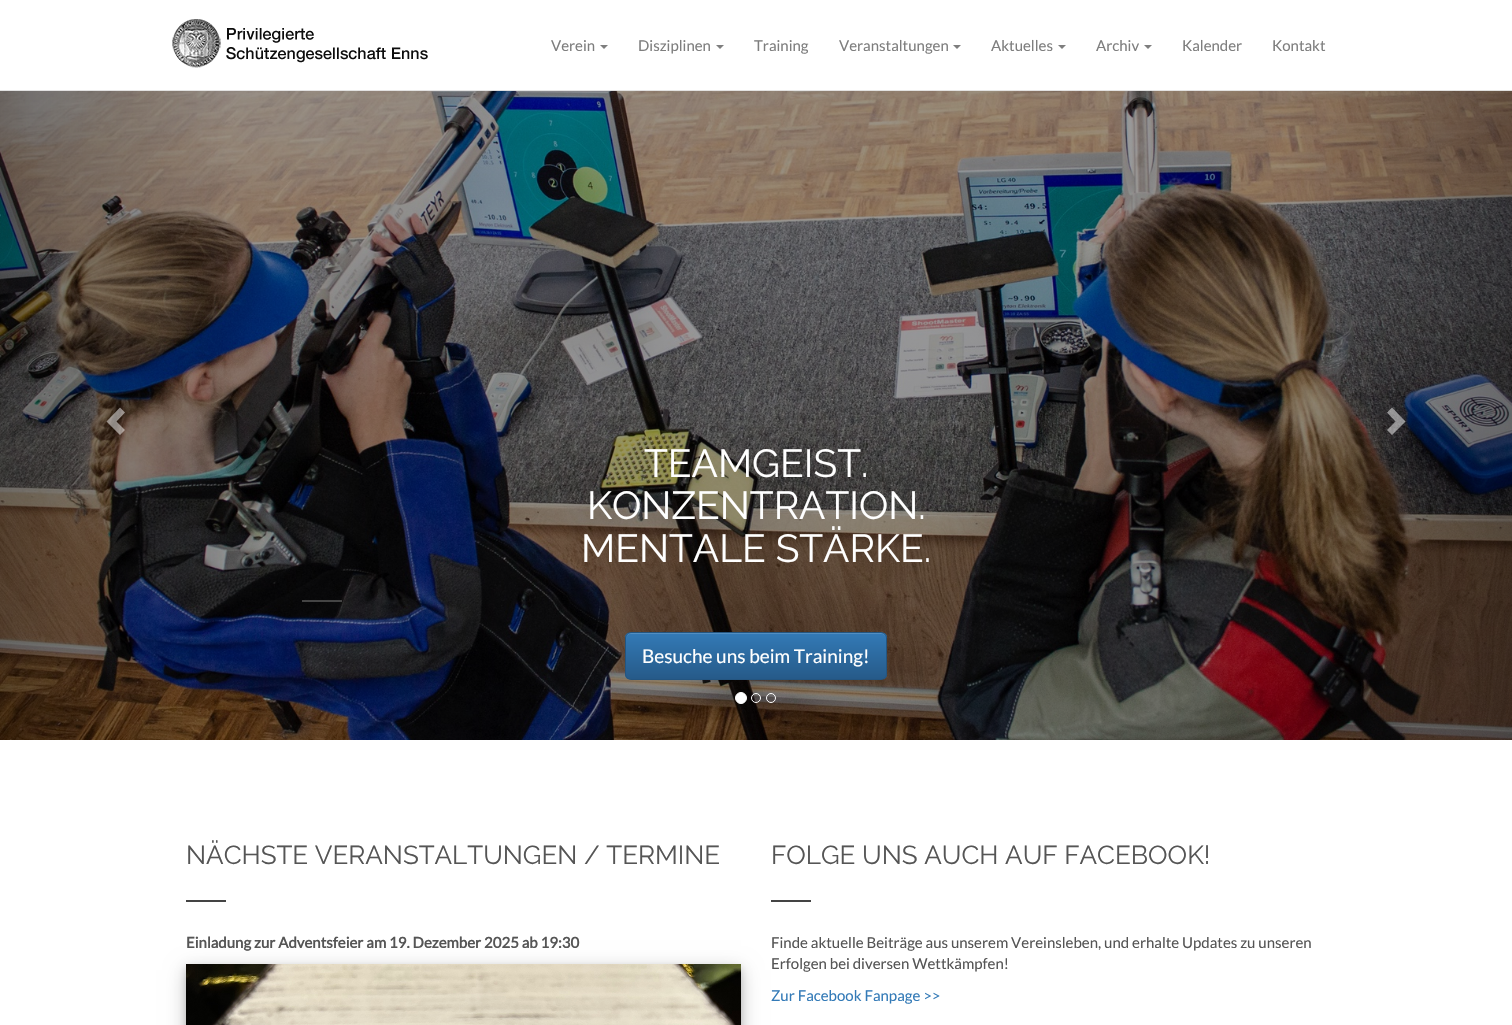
void draw(SkCanvas* canvas) {
  SkPaint paint;
  paint.setAntiAlias(true);
  auto face = [&](const char* family, int weight, float size, bool italic = false) {
    SkFontStyle style(weight, SkFontStyle::kNormal_Width,
      italic ? SkFontStyle::kItalic_Slant : SkFontStyle::kUpright_Slant);
    SkFont result(fontMgr->matchFamilyStyle(family, style), size);
    result.setSubpixel(true);
    return result;
  };
  auto paste = [&](const char* path, float x, float y, float w, float h) {
    auto image = SkImages::DeferredFromEncodedData(SkData::MakeFromFileName(path));
    canvas->drawImageRect(image, SkRect::MakeXYWH(x, y, w, h), SkSamplingOptions());
  };
  auto shape = [&](const char* data, bool evenOdd = false) {
    SkPath result = *SkParsePath::FromSVGString(data);
    if (evenOdd) result.setFillType(SkPathFillType::kEvenOdd);
    return result;
  };
  canvas->clear(0xffffffff);
  paste("img/2.png", 0, 90, 1512, 650);
  paint.setColor(0xf2e7e7e7);
  canvas->drawRect(SkRect::MakeXYWH(0, 90, 1512, 1), paint);
  paste("img/1.png", 172, 19, 256, 49);
  paint.setColor(0xff7e7e7e);
  canvas->drawPath(shape("M600 45H608L604 49Z"), paint);
  canvas->drawPath(shape("M716 45H724L720 49Z"), paint);
  canvas->drawPath(shape("M953 45H961L957 49Z"), paint);
  canvas->drawPath(shape("M1058 45H1066L1062 49Z"), paint);
  canvas->drawPath(shape("M1144 45H1152L1148 49Z"), paint);
  paint.setColor(0x80ffffff);
  canvas->drawPath(shape("M125 412.5L116.5 421.5L125 430L120 435L106.5 421.5L120 407.5Z"), paint);
  canvas->drawPath(shape("M1405.5 421.5L1392 435L1387 430L1395.5 421.5L1387 412.5L1392 407.5Z"), paint);
  paint.setColor(0xff444444);
  canvas->drawRect(SkRect::MakeXYWH(302, 600, 40, 2), paint);
  canvas->save();
  canvas->clipPath(shape("M631 632H881C884.5 632 887 634.5 887 638V674C887 677.5 884.5 680 881 680H631C627.5 680 625 677.5 625 674V638C625 634.5 627.5 632 631 632Z"), true);
  {
    const SkColor colors[] = {0xff337ab7, 0xff265a88};
    const float stops[] = {0, 1};
    const SkPoint ends[] = {{756, 633}, {756, 679}};
    paint.setShader(SkGradientShader::MakeLinear(ends, colors, stops, 2, SkTileMode::kClamp));
    paint.setAlpha(255);
  }
  canvas->drawRect(SkRect::MakeXYWH(625, 633, 262, 46), paint);
  canvas->restore();
  paint.setShader(nullptr);
  paint.setColor(0xff528ec1);
  canvas->drawPath(shape("M631 634H881C884 634 886 636 886 639C886 636 884 633 881 633H631C628 633 626 636 626 639C626 636 628 634 631 634Z"), paint);
  paint.setStroke(true);
  paint.setStrokeWidth(1);
  paint.setColor(0xff245580);
  canvas->drawRoundRect(SkRect::MakeXYWH(625.5f, 632.5f, 261, 47), 5.5f, 5.5f, paint);
  paint.setStroke(false);
  paint.setColor(0xffffffff);
  canvas->drawCircle(741, 698, 5.5f, paint);
  paint.setStroke(true);
  canvas->drawCircle(741, 698, 5.5f, paint);
  canvas->drawCircle(756, 698, 4.5f, paint);
  canvas->drawCircle(771, 698, 4.5f, paint);
  paint.setStroke(false);
  paint.setColor(0xff444444);
  canvas->drawRect(SkRect::MakeXYWH(186, 900, 40, 2), paint);
  paint.setColor(0x30000000);
  paint.setMaskFilter(SkMaskFilter::MakeBlur(kNormal_SkBlurStyle, 10));
  canvas->drawRect(SkRect::MakeXYWH(186, 970, 555, 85), paint);
  paint.setMaskFilter(nullptr);
  paint.setColor(0x33000000);
  paint.setMaskFilter(SkMaskFilter::MakeBlur(kNormal_SkBlurStyle, 4));
  canvas->drawRect(SkRect::MakeXYWH(186, 968, 555, 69), paint);
  paint.setMaskFilter(nullptr);
  paste("img/3.png", 186, 964, 555, 61);
  paint.setColor(0xff444444);
  canvas->drawRect(SkRect::MakeXYWH(771, 900, 40, 2), paint);
  auto f0 = face("Lato", 400, 15);
  paint.setColor(0xff7e7e7e);
  {
    const struct { const char* s; float x, y; } items[] = {
      {"Verein", 551, 51},
      {"Disziplinen", 638, 51},
      {"Training", 754, 51},
      {"Veranstaltungen", 839, 51},
      {"Aktuelles", 991, 51},
      {"Archiv", 1096, 51},
      {"Kalender", 1182, 51},
      {"Kontakt", 1272, 51},
    };
    for (auto [s, x, y] : items) {
      canvas->drawString(s, x, y, f0, paint);
    }
  }
  auto f1 = face("Raleway", 400, 39);
  paint.setColor(0xffffffff);
  {
    const struct { const char* s; float x, y; } items[] = {
      {"TEAMGEIST.", 644, 477},
      {"KONZENTRATION.", 587, 519},
      {"MENTALE STÄRKE.", 581, 562},
    };
    for (auto [s, x, y] : items) {
      canvas->drawString(s, x, y, f1, paint);
    }
  }
  auto f2 = face("Lato", 400, 19);
  canvas->drawString("Besuche uns beim Training!", 642, 663, f2, paint);
  auto f3 = face("Raleway", 400, 26);
  paint.setColor(0xff555555);
  canvas->drawString("NÄCHSTE VERANSTALTUNGEN / TERMINE", 186, 864, f3, paint);
  auto f4 = face("Lato", 700, 15);
  canvas->drawString("Einladung zur Adventsfeier am 19. Dezember 2025 ab 19:30", 186, 948, f4, paint);
  canvas->drawString("FOLGE UNS AUCH AUF FACEBOOK!", 771, 864, f3, paint);
  canvas->drawString("Finde aktuelle Beiträge aus unserem Vereinsleben, und erhalte Updates zu unseren", 771, 948, f0, paint);
  canvas->drawString("Erfolgen bei diversen Wettkämpfen!", 771, 969, f0, paint);
  paint.setColor(0xff337ab7);
  canvas->drawString("Zur Facebook Fanpage >>", 771, 1001, f0, paint);
}
